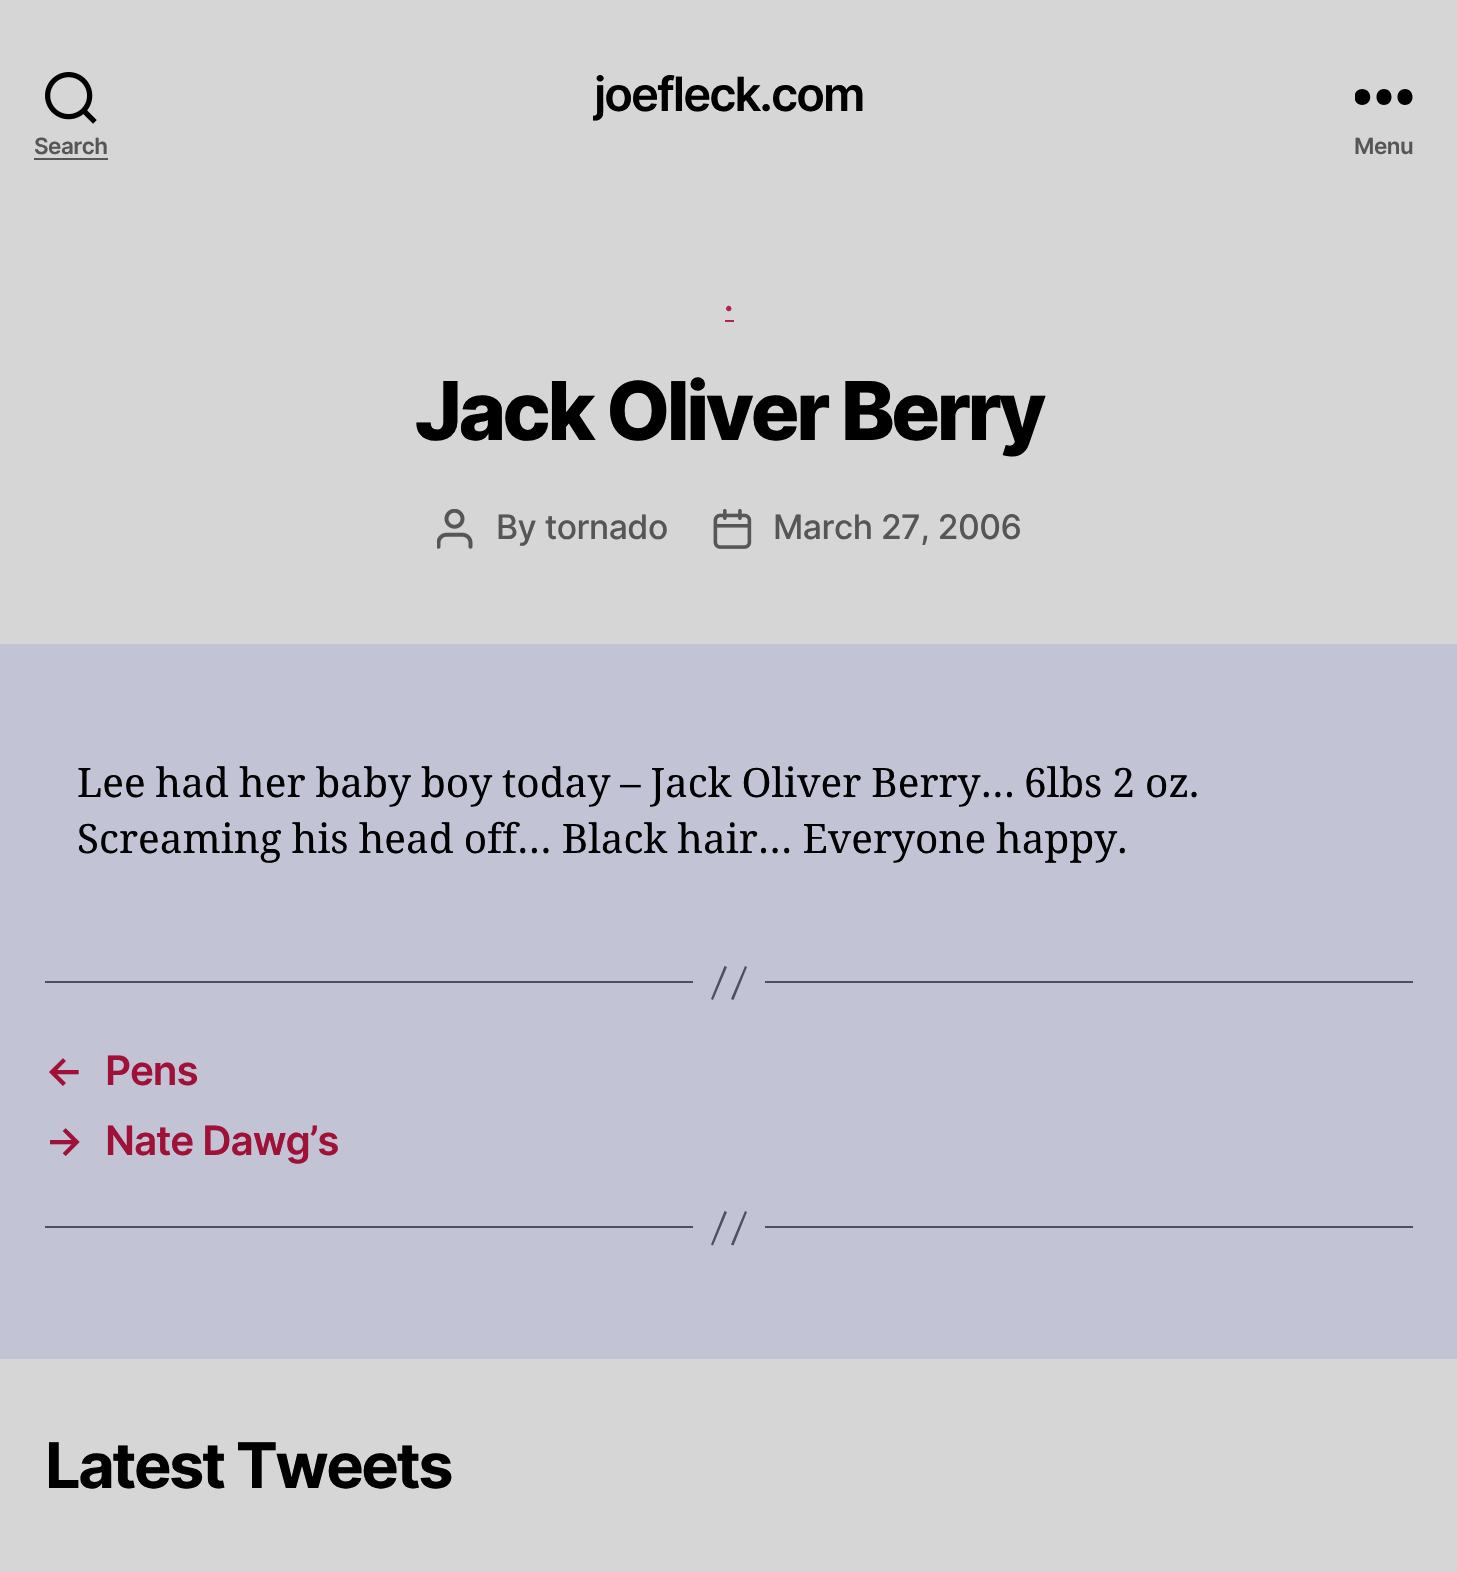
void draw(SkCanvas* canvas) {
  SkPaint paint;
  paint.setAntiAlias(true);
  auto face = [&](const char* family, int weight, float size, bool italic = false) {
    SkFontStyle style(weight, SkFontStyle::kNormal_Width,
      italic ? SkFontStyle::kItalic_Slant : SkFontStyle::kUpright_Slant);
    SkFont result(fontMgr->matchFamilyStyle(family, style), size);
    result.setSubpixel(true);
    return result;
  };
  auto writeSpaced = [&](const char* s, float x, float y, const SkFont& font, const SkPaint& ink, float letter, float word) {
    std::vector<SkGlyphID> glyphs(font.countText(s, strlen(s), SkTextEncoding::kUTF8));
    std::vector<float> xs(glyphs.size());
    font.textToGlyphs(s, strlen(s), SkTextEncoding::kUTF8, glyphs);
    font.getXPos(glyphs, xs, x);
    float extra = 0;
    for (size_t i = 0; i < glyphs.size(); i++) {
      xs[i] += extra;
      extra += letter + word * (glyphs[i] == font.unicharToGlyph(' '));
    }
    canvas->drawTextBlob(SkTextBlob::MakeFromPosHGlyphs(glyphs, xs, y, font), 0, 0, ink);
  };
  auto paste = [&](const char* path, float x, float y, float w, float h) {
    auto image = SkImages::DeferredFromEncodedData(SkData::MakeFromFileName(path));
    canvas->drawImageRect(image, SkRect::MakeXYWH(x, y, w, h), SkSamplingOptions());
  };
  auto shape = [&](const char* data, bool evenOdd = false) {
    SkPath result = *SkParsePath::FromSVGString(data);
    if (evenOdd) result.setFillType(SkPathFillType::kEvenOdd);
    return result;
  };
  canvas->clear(0xffc2c4d6);
  paint.setColor(0xffd6d6d6);
  canvas->drawRect(SkRect::MakeXYWH(0, 0, 1457, 644), paint);
  paste("img/1.png", 45, 72, 52, 52);
  paint.setColor(0xff565656);
  canvas->drawRect(SkRect::MakeXYWH(34, 158, 74, 2), paint);
  canvas->save();
  canvas->clipRect(SkRect::MakeXYWH(1355, 88, 58, 18));
  paint.setColor(0xff000000);
  canvas->drawPath(shape("M1362 105C1352 105 1352 89 1362 89C1373 89 1373 105 1362 105ZM1384 105C1374 105 1374 89 1384 89C1394 89 1394 105 1384 105ZM1405 105C1395 105 1395 89 1405 89C1415 89 1415 105 1405 105Z", true), paint);
  canvas->restore();
  paint.setColor(0xffb0254a);
  canvas->drawRect(SkRect::MakeXYWH(725, 320, 9, 2), paint);
  paste("img/2.png", 437, 509, 36, 40);
  paste("img/3.png", 713, 509, 39, 40);
  paint.setColor(0xff4e4f5f);
  canvas->drawRect(SkRect::MakeXYWH(765, 981, 648, 2), paint);
  canvas->drawRect(SkRect::MakeXYWH(45, 981, 648, 2), paint);
  canvas->drawPath(shape("M724.5 966L727 967L713 1000L711 999ZM745 966L747 967L733.5 1000L731 999Z"), paint);
  canvas->drawRect(SkRect::MakeXYWH(765, 1226, 648, 2), paint);
  canvas->drawRect(SkRect::MakeXYWH(45, 1226, 648, 2), paint);
  canvas->drawPath(shape("M724.5 1211L727 1212L713 1245.5L711 1244.5ZM745 1211L747 1212L733.5 1245.5L731 1244.5Z"), paint);
  paint.setColor(0xffd6d6d6);
  canvas->drawRect(SkRect::MakeXYWH(0, 1359, 1457, 213), paint);
  auto f0 = face("Inter", 600, 47.25f);
  paint.setColor(0xff000000);
  writeSpaced("joefleck.com", 594, 111, f0, paint, -2, 0);
  auto f1 = face("Inter", 600, 22.5f);
  paint.setColor(0xff565656);
  writeSpaced("Search", 34, 154, f1, paint, -0.5f, 0);
  writeSpaced("Menu", 1354, 154, f1, paint, -0.5f, 0);
  auto f2 = face("Inter", 700, 32);
  paint.setColor(0xffb0254a);
  writeSpaced(".", 724, 311, f2, paint, 1, 0);
  auto f3 = face("Inter", 800, 81);
  paint.setColor(0xff000000);
  writeSpaced("Jack Oliver Berry", 415, 440, f3, paint, -3.4f, 0);
  auto f4 = face("Inter", 500, 33.75f);
  paint.setColor(0xff565656);
  writeSpaced("By tornado", 496, 539, f4, paint, -0.5f, 0);
  writeSpaced("March 27, 2006", 773, 539, f4, paint, -0.5f, 0);
  auto f5 = face("Noto Serif", 400, 40.5f);
  paint.setColor(0xff000000);
  {
    const struct { const char* s; float x, y; } items[] = {
      {"Lee had her baby boy today – Jack Oliver Berry…", 77, 797},
      {"6lbs 2 oz.", 1024, 797},
      {"Screaming his head off… Black hair… Everyone happy.", 77, 853},
    };
    for (auto [s, x, y] : items) {
      writeSpaced(s, x, y, f5, paint, 0, -0.5f);
    }
  }
  auto f6 = face("Inter", 600, 40.5f);
  paint.setColor(0xffa01137);
  {
    const struct { const char* s; float x, y; } items[] = {
      {"←", 45, 1085},
      {"Pens", 105, 1085},
      {"→", 45, 1155},
      {"Nate Dawg’s", 105, 1155},
    };
    for (auto [s, x, y] : items) {
      writeSpaced(s, x, y, f6, paint, -1.1f, 0);
    }
  }
  auto f7 = face("Inter", 700, 63);
  paint.setColor(0xff000000);
  writeSpaced("Latest Tweets", 45, 1488, f7, paint, -2.6f, 0);
}
